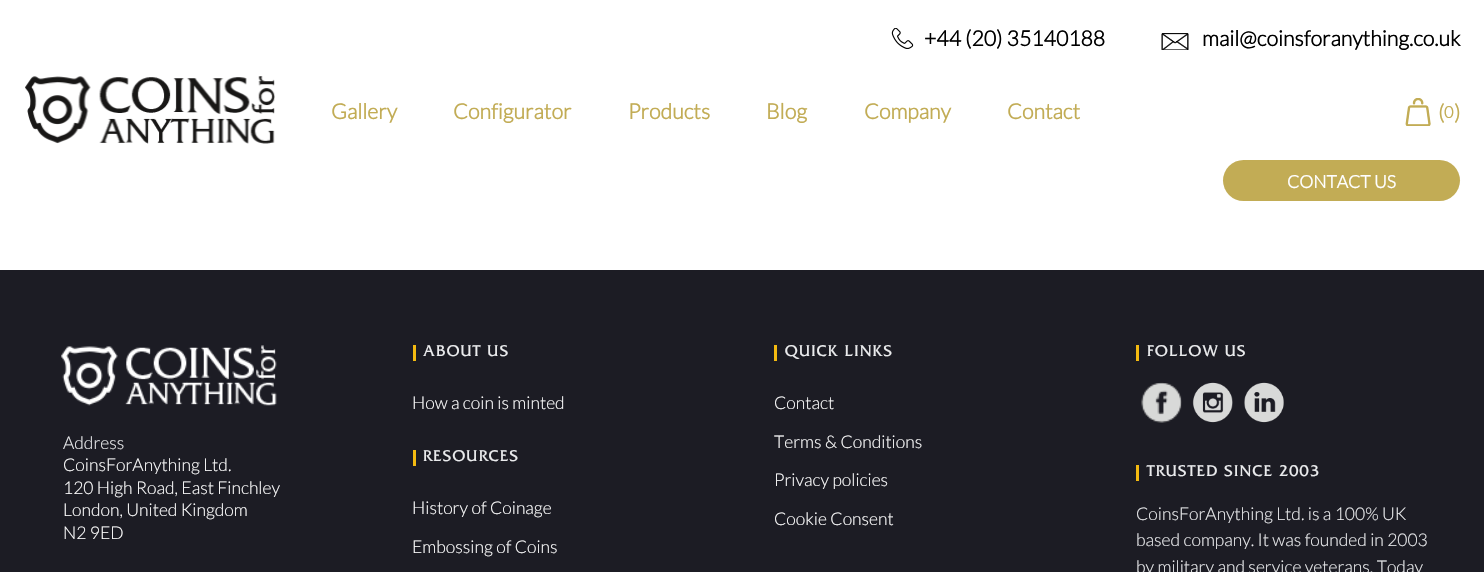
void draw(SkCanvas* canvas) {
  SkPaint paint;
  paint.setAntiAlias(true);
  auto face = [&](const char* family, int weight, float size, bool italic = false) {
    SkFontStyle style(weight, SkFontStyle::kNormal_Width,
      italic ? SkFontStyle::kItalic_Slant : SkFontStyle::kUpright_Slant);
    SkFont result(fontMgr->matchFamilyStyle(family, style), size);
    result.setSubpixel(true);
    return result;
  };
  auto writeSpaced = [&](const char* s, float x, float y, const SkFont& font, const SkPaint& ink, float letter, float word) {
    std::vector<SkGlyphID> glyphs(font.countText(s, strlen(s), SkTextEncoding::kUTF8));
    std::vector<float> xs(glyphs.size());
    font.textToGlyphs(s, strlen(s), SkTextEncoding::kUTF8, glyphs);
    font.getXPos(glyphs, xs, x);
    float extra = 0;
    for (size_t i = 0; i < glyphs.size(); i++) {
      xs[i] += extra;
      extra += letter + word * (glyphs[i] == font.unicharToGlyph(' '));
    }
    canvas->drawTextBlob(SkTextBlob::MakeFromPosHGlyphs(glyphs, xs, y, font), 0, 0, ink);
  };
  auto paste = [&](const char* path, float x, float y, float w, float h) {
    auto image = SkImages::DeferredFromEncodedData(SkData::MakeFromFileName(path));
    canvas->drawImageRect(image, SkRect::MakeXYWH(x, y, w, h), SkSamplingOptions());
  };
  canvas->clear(0xffffffff);
  paste("img/1.png", 891, 28, 23, 21);
  paste("img/2.png", 1161, 33, 28, 17);
  paste("img/3.png", 25, 76, 250, 68);
  paste("img/4.png", 1405, 98, 26, 28);
  paint.setColor(0xffc2ac55);
  canvas->drawRoundRect(SkRect::MakeXYWH(1223, 160, 237, 41), 20.5f, 20.5f, paint);
  paint.setColor(0xff1c1c24);
  canvas->drawRect(SkRect::MakeXYWH(0, 270, 1484, 302), paint);
  paste("img/5.png", 61, 345, 216, 61);
  {
    const struct { float x, y, w, h; SkColor color; } items[] = {
      {413, 345, 3, 16, 0xfff3ba11},
      {413, 450, 3, 16, 0xfff3ba11},
      {774, 345, 3, 16, 0xfff3ba11},
      {1136, 345, 3, 16, 0xfff3ba11},
    };
    for (auto [x, y, w, h, color] : items) {
      paint.setColor(color);
      canvas->drawRect(SkRect::MakeXYWH(x, y, w, h), paint);
    }
  }
  paste("img/6.png", 1141, 382, 41, 41);
  paste("img/7.png", 1192, 382, 41, 41);
  paste("img/8.png", 1244, 382, 40, 41);
  canvas->drawRect(SkRect::MakeXYWH(1136, 465, 3, 16), paint);
  auto f0 = face("Lato", 700, 21.25f);
  paint.setColor(0xff000000);
  canvas->drawString("+44 (20) 35140188", 924, 46, f0, paint);
  canvas->drawString("mail@coinsforanything.co.uk", 1202, 46, f0, paint);
  paint.setColor(0xffc2ac55);
  {
    const struct { const char* s; float x, y; } items[] = {
      {"Gallery", 331, 119},
      {"Configurator", 453, 119},
      {"Products", 628, 119},
      {"Blog", 766, 119},
      {"Company", 864, 119},
      {"Contact", 1007, 119},
      {"(", 1438, 120},
    };
    for (auto [s, x, y] : items) {
      canvas->drawString(s, x, y, f0, paint);
    }
  }
  auto f1 = face("Lato", 700, 16.25f);
  canvas->drawString("0", 1444, 118, f1, paint);
  canvas->drawString(")", 1454, 120, f0, paint);
  auto f2 = face("Lato", 700, 17.5f);
  paint.setColor(0xffffffff);
  canvas->drawString("CONTACT US", 1287, 188, f2, paint);
  auto f3 = face("Lato", 300, 17.5f);
  paint.setColor(0xffeaebed);
  canvas->drawString("Address", 63, 449, f3, paint);
  paint.setColor(0xffffffff);
  {
    const struct { const char* s; float x, y; } items[] = {
      {"CoinsForAnything Ltd.", 63, 471},
      {"120 High Road, East Finchley", 63, 494},
      {"London, United Kingdom", 63, 516},
      {"N2 9ED", 63, 539},
    };
    for (auto [s, x, y] : items) {
      canvas->drawString(s, x, y, f3, paint);
    }
  }
  auto f4 = face("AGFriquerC", 400, 16.25f);
  paint.setColor(0xffeaebed);
  writeSpaced("ABOUT US", 423, 356, f4, paint, 1.25f, 0);
  paint.setColor(0xffffffff);
  canvas->drawString("How a coin is minted", 412, 409, f3, paint);
  paint.setColor(0xffeaebed);
  writeSpaced("RESOURCES", 423, 461, f4, paint, 1.25f, 0);
  paint.setColor(0xffffffff);
  canvas->drawString("History of Coinage", 412, 514, f3, paint);
  canvas->drawString("Embossing of Coins", 412, 553, f3, paint);
  paint.setColor(0xffeaebed);
  writeSpaced("QUICK LINKS", 785, 356, f4, paint, 1.25f, 0);
  paint.setColor(0xffffffff);
  {
    const struct { const char* s; float x, y; } items[] = {
      {"Contact", 774, 409},
      {"Terms & Conditions", 774, 448},
      {"Privacy policies", 774, 486},
      {"Cookie Consent", 774, 525},
    };
    for (auto [s, x, y] : items) {
      canvas->drawString(s, x, y, f3, paint);
    }
  }
  paint.setColor(0xffeaebed);
  writeSpaced("FOLLOW US", 1147, 356, f4, paint, 1.25f, 0);
  writeSpaced("TRUSTED SINCE 2003", 1147, 476, f4, paint, 1.25f, 0);
  {
    const struct { const char* s; float x, y; } items[] = {
      {"CoinsForAnything Ltd. is a 100% UK", 1136, 520},
      {"based company. It was founded in 2003", 1136, 546},
      {"by military and service veterans. Today", 1136, 573},
    };
    for (auto [s, x, y] : items) {
      canvas->drawString(s, x, y, f3, paint);
    }
  }
}
